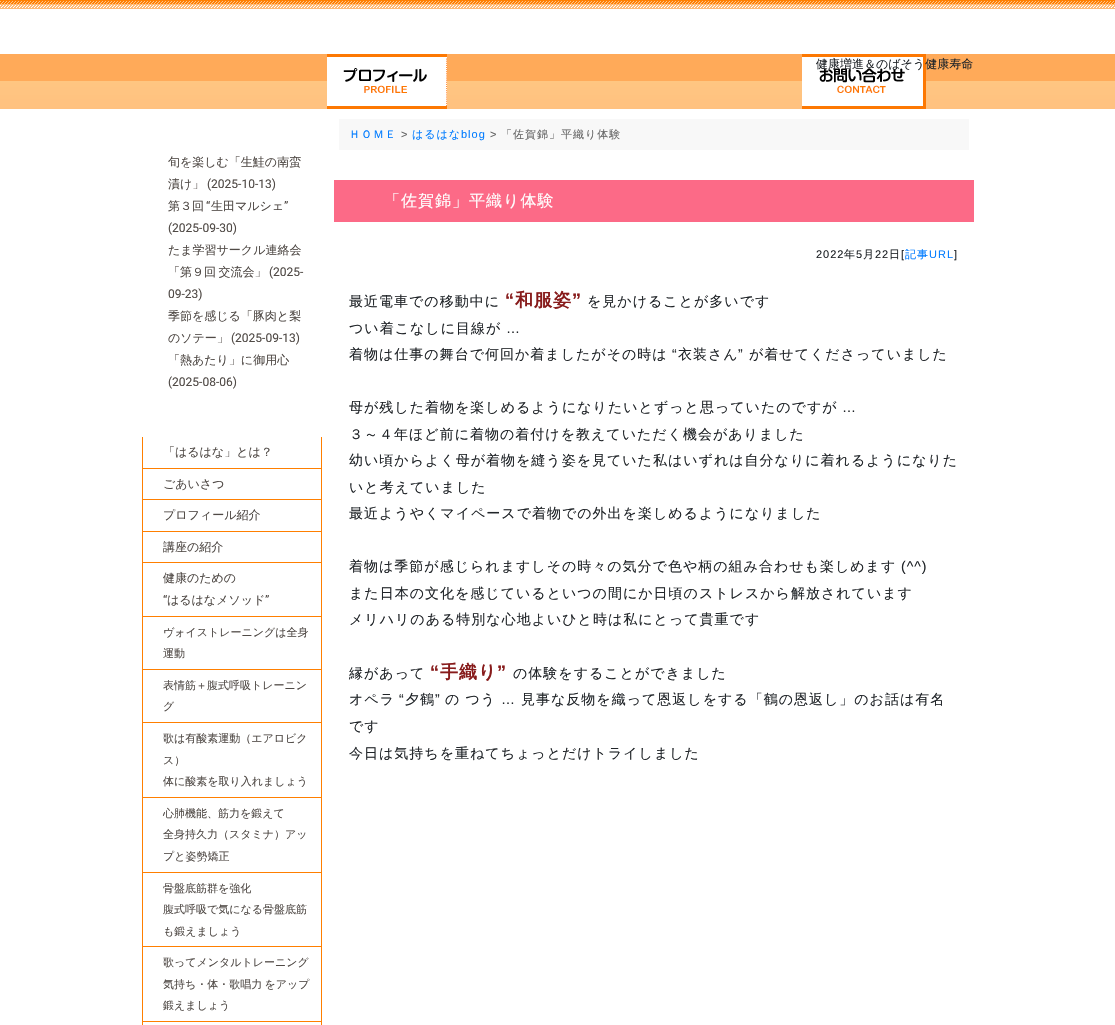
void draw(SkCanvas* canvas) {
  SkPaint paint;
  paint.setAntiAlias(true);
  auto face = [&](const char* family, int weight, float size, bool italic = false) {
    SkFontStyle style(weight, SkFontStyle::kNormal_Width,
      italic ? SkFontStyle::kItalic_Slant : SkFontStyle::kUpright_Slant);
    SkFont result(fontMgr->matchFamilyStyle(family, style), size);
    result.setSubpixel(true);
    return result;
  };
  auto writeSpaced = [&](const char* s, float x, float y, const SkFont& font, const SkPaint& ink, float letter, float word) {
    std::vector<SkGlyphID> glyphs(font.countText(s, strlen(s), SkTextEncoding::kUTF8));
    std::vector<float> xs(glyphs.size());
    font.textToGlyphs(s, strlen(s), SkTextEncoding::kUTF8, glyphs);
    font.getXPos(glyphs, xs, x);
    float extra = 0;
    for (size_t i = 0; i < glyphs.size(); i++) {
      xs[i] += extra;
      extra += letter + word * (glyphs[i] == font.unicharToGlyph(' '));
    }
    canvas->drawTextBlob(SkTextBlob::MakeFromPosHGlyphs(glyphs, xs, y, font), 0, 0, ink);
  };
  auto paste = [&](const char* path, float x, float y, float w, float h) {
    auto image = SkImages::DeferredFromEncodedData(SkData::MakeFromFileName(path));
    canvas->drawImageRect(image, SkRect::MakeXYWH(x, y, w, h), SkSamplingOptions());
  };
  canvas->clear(0xffffffff);
  paste("img/1.png", 0, 0, 1115, 9);
  paste("img/2.png", 0, 54, 1115, 55);
  paste("img/3.png", 327, 54, 120, 55);
  paste("img/4.png", 802, 54, 124, 55);
  {
    const struct { float x, y, w, h; SkColor color; } items[] = {
      {321, 437, 1, 588, 0xffff7f00},
      {142, 468, 180, 1, 0xffff7f00},
      {142, 437, 1, 32, 0xffff7f00},
      {142, 499, 180, 1, 0xffff7f00},
      {142, 469, 1, 31, 0xffff7f00},
      {142, 531, 180, 1, 0xffff7f00},
      {142, 500, 1, 32, 0xffff7f00},
      {142, 562, 180, 1, 0xffff7f00},
      {142, 532, 1, 31, 0xffff7f00},
      {142, 616, 180, 1, 0xffff7f00},
      {142, 563, 1, 54, 0xffff7f00},
      {142, 669, 180, 1, 0xffff7f00},
      {142, 617, 1, 53, 0xffff7f00},
      {142, 722, 180, 1, 0xffff7f00},
      {142, 670, 1, 53, 0xffff7f00},
      {142, 797, 180, 1, 0xffff7f00},
      {142, 723, 1, 75, 0xffff7f00},
      {142, 872, 180, 1, 0xffff7f00},
      {142, 798, 1, 75, 0xffff7f00},
      {142, 946, 180, 1, 0xffff7f00},
      {142, 873, 1, 74, 0xffff7f00},
      {142, 1021, 180, 1, 0xffff7f00},
      {142, 947, 1, 78, 0xffff7f00},
      {339, 119, 630, 31, 0xfff8f8f8},
      {334, 180, 640, 42, 0xfffc6a87},
    };
    for (auto [x, y, w, h, color] : items) {
      paint.setColor(color);
      canvas->drawRect(SkRect::MakeXYWH(x, y, w, h), paint);
    }
  }
  auto f0 = face("WenQuanYi Zen Hei", 500, 12);
  paint.setColor(0xff212529);
  canvas->drawString("健康増進＆のばそう健康寿命", 816, 68, f0, paint);
  paint.setColor(0xff504a46);
  canvas->drawString("旬を楽しむ「生鮭の南蛮", 168, 166, f0, paint);
  canvas->drawString("漬け」", 168, 188, f0, paint);
  auto f1 = face("Roboto", 400, 12);
  canvas->drawString("(2025-10-13)", 207, 188, f1, paint);
  canvas->drawString("第３回", 168, 210, f0, paint);
  canvas->drawString("“", 206, 210, f1, paint);
  canvas->drawString("生田マルシェ", 211, 210, f0, paint);
  canvas->drawString("”", 284, 210, f1, paint);
  canvas->drawString("(2025-09-30)", 168, 232, f1, paint);
  canvas->drawString("たま学習サークル連絡会", 168, 254, f0, paint);
  writeSpaced("「第９回 交流会」", 168, 276, f0, paint, 0, -1);
  canvas->drawString("(2025-", 269, 276, f1, paint);
  canvas->drawString("09-23)", 168, 298, f1, paint);
  canvas->drawString("季節を感じる「豚肉と梨", 168, 320, f0, paint);
  canvas->drawString("のソテー」", 168, 342, f0, paint);
  canvas->drawString("(2025-09-13)", 231, 342, f1, paint);
  canvas->drawString("「熱あたり」に御用心", 168, 364, f0, paint);
  canvas->drawString("(2025-08-06)", 168, 386, f1, paint);
  {
    const struct { const char* s; float x, y; } items[] = {
      {"「はるはな」とは？", 163, 456},
      {"ごあいさつ", 163, 488},
      {"プロフィール紹介", 163, 519},
      {"講座の紹介", 163, 551},
      {"健康のための", 163, 582},
    };
    for (auto [s, x, y] : items) {
      canvas->drawString(s, x, y, f0, paint);
    }
  }
  canvas->drawString("“", 163, 604, f1, paint);
  canvas->drawString("はるはなメソッド", 167, 604, f0, paint);
  canvas->drawString("”", 265, 604, f1, paint);
  auto f2 = face("WenQuanYi Zen Hei", 500, 11);
  {
    const struct { const char* s; float x, y; } items[] = {
      {"ヴォイストレーニングは全身", 163, 636},
      {"運動", 163, 657},
      {"表情筋＋腹式呼吸トレーニン", 163, 689},
      {"グ", 163, 710},
      {"歌は有酸素運動（エアロビク", 163, 742},
      {"ス）", 163, 764},
      {"体に酸素を取り入れましょう", 163, 785},
      {"心肺機能、筋力を鍛えて", 163, 817},
      {"全身持久力（スタミナ）アッ", 163, 838},
      {"プと姿勢矯正", 163, 860},
      {"骨盤底筋群を強化", 163, 892},
      {"腹式呼吸で気になる骨盤底筋", 163, 913},
      {"も鍛えましょう", 163, 935},
      {"歌ってメンタルトレーニング", 163, 966},
    };
    for (auto [s, x, y] : items) {
      canvas->drawString(s, x, y, f2, paint);
    }
  }
  writeSpaced("気持ち・体・歌唱力 をアップ", 163, 988, f2, paint, 0, -1);
  canvas->drawString("鍛えましょう", 163, 1009, f2, paint);
  paint.setColor(0xff007bff);
  writeSpaced("ＨＯＭＥ", 349, 138, f2, paint, 1, 0);
  auto f3 = face("Liberation Sans", 400, 11);
  paint.setColor(0xff666666);
  writeSpaced(">", 401, 138, f3, paint, 1, 0);
  paint.setColor(0xff007bff);
  writeSpaced("はるはな", 412, 138, f2, paint, 1, 0);
  writeSpaced("blog", 461, 138, f3, paint, 1, 0);
  paint.setColor(0xff666666);
  writeSpaced(">", 490, 138, f3, paint, 1, 0);
  writeSpaced("「佐賀錦」平織り体験", 501, 138, f2, paint, 1, 0);
  auto f4 = face("WenQuanYi Zen Hei", 500, 16);
  paint.setColor(0xffffffff);
  writeSpaced("「佐賀錦」平織り体験", 384, 206, f4, paint, 1, 0);
  paint.setColor(0xff212529);
  writeSpaced("2022", 816, 258, f3, paint, 1, 0);
  writeSpaced("年", 844, 258, f2, paint, 1, 0);
  writeSpaced("5", 856, 258, f3, paint, 1, 0);
  writeSpaced("月", 863, 258, f2, paint, 1, 0);
  writeSpaced("22", 875, 258, f3, paint, 1, 0);
  writeSpaced("日", 889, 258, f2, paint, 1, 0);
  writeSpaced("[", 901, 258, f3, paint, 1, 0);
  paint.setColor(0xff007bff);
  writeSpaced("記事", 905, 258, f2, paint, 1, 0);
  writeSpaced("URL", 929, 258, f3, paint, 1, 0);
  paint.setColor(0xff212529);
  writeSpaced("]", 954, 258, f3, paint, 1, 0);
  auto f5 = face("WenQuanYi Zen Hei", 500, 14);
  writeSpaced("最近電車での移動中に", 349, 306, f5, paint, 1, 0);
  auto f6 = face("Liberation Sans", 700, 18);
  paint.setColor(0xff871b1b);
  writeSpaced("“", 505, 306, f6, paint, 1, 0);
  auto f7 = face("WenQuanYi Zen Hei", 700, 18);
  writeSpaced("和服姿", 515, 306, f7, paint, 1, 0);
  writeSpaced("”", 572, 306, f6, paint, 1, 0);
  paint.setColor(0xff212529);
  writeSpaced("を見かけることが多いです", 587, 306, f5, paint, 1, 0);
  writeSpaced("つい着こなしに目線が", 349, 333, f5, paint, 1, 0);
  auto f8 = face("Liberation Sans", 400, 14);
  writeSpaced("…", 506, 333, f8, paint, 1, 0);
  writeSpaced("着物は仕事の舞台で何回か着ましたがその時は", 349, 359, f5, paint, 1, 0);
  writeSpaced("“", 672, 359, f8, paint, 1, 0);
  writeSpaced("衣装さん", 678, 359, f5, paint, 1, 0);
  writeSpaced("”", 738, 359, f8, paint, 1, 0);
  writeSpaced("が着せてくださっていました", 749, 359, f5, paint, 1, 0);
  writeSpaced("母が残した着物を楽しめるようになりたいとずっと思っていたのですが", 349, 412, f5, paint, 1, 0);
  writeSpaced("…", 842, 412, f8, paint, 1, 0);
  {
    const struct { const char* s; float x, y; } items[] = {
      {"３～４年ほど前に着物の着付けを教えていただく機会がありました", 349, 439},
      {"幼い頃からよく母が着物を縫う姿を見ていた私はいずれは自分なりに着れるようになりた", 349, 465},
      {"いと考えていました", 349, 492},
      {"最近ようやくマイペースで着物での外出を楽しめるようになりました", 349, 518},
      {"着物は季節が感じられますしその時々の気分で色や柄の組み合わせも楽しめます", 349, 571},
    };
    for (auto [s, x, y] : items) {
      writeSpaced(s, x, y, f5, paint, 1, 0);
    }
  }
  writeSpaced("(^^)", 901, 571, f8, paint, 1, 0);
  {
    const struct { const char* s; float x, y; } items[] = {
      {"また日本の文化を感じているといつの間にか日頃のストレスから解放されています", 349, 598},
      {"メリハリのある特別な心地よいひと時は私にとって貴重です", 349, 624},
      {"縁があって", 349, 678},
    };
    for (auto [s, x, y] : items) {
      writeSpaced(s, x, y, f5, paint, 1, 0);
    }
  }
  paint.setColor(0xff871b1b);
  writeSpaced("“", 430, 678, f6, paint, 1, 0);
  writeSpaced("手織り", 440, 678, f7, paint, 1, 0);
  writeSpaced("”", 497, 678, f6, paint, 1, 0);
  paint.setColor(0xff212529);
  writeSpaced("の体験をすることができました", 513, 678, f5, paint, 1, 0);
  writeSpaced("オペラ", 349, 704, f5, paint, 1, 0);
  writeSpaced("“", 399, 704, f8, paint, 1, 0);
  writeSpaced("夕鶴", 405, 704, f5, paint, 1, 0);
  writeSpaced("”", 435, 704, f8, paint, 1, 0);
  writeSpaced("の つう", 445, 704, f5, paint, 1, 0);
  writeSpaced("見事な反物を織って恩返しをする「鶴の恩返し」のお話は有名", 521, 704, f5, paint, 1, 0);
  writeSpaced("…", 501, 704, f8, paint, 1, 0);
  writeSpaced("です", 349, 731, f5, paint, 1, 0);
  writeSpaced("今日は気持ちを重ねてちょっとだけトライしました", 349, 758, f5, paint, 1, 0);
}
